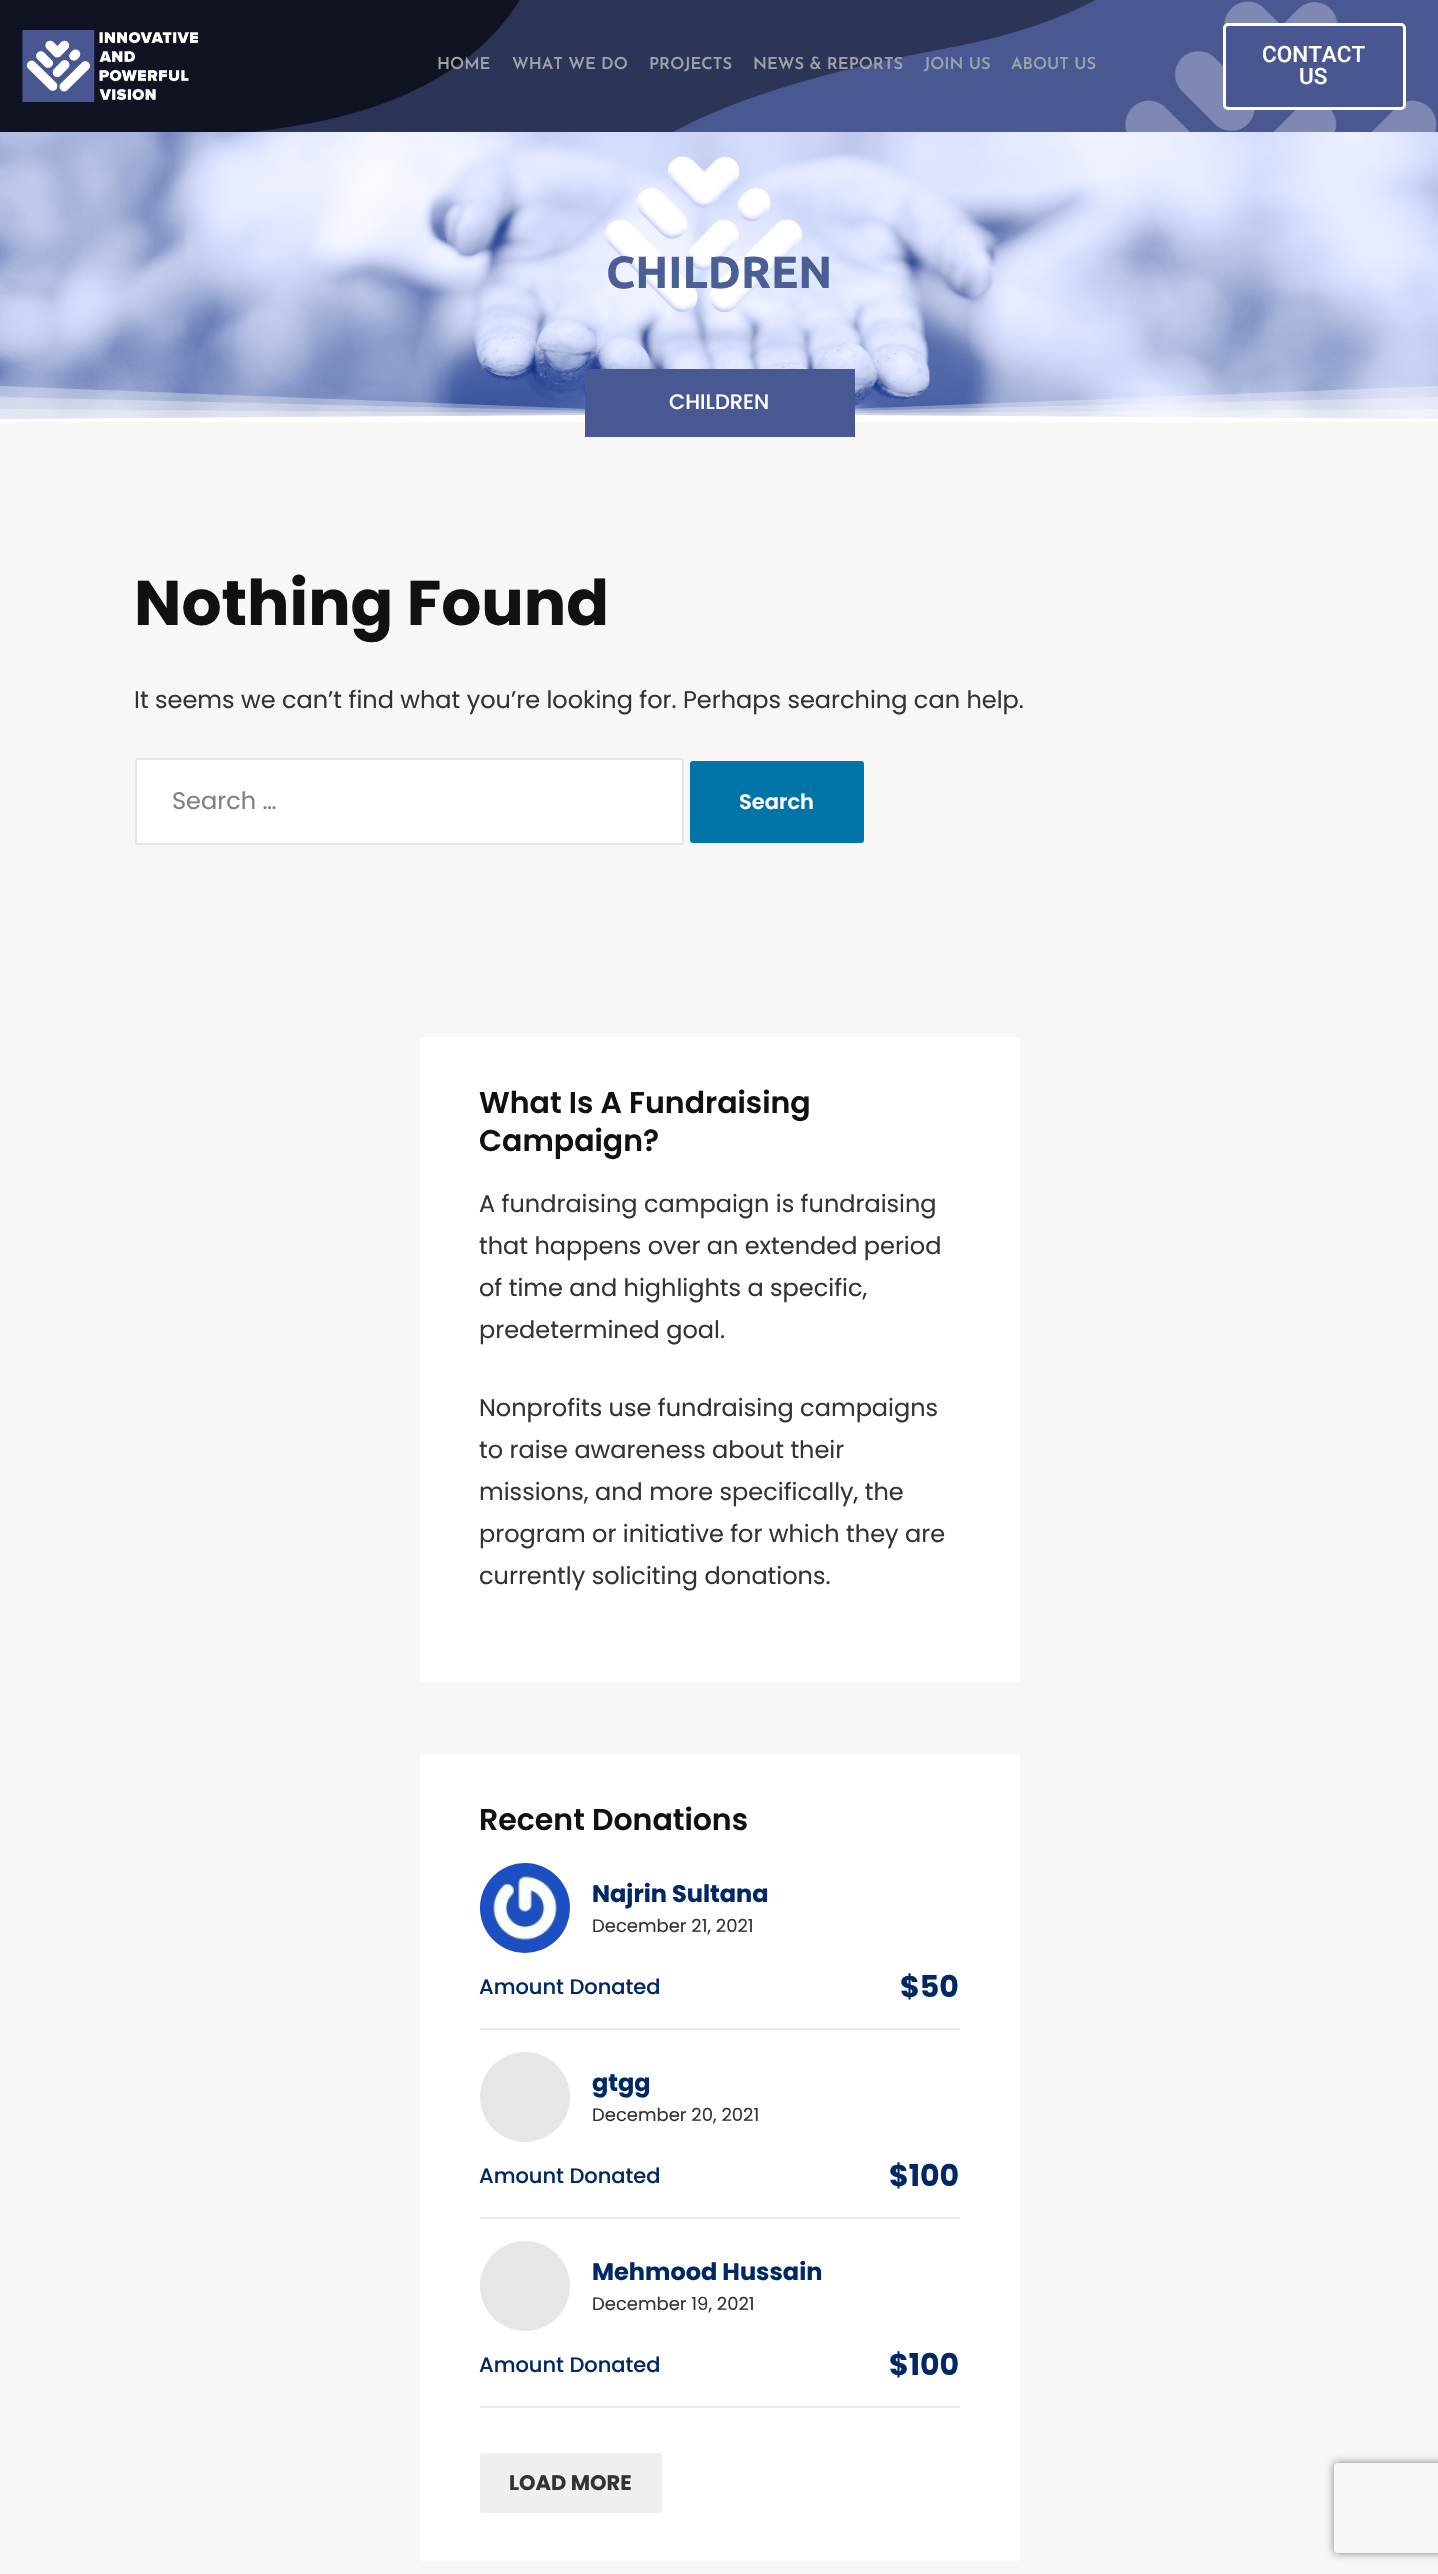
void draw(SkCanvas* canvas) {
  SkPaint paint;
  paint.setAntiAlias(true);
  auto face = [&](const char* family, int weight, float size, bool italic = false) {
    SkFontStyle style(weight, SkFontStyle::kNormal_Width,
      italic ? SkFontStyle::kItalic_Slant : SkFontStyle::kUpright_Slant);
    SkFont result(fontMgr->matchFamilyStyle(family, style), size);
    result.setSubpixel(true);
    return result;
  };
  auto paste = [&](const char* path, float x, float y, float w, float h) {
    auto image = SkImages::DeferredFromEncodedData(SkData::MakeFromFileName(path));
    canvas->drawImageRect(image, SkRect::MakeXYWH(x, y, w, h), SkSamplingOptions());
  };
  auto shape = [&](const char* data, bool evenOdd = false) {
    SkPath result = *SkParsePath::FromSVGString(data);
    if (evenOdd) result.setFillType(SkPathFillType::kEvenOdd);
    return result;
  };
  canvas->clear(0xfff8f7f5);
  paste("img/1.png", 0, 0, 1438, 132);
  paste("img/2.png", 22, 30, 176, 72);
  paint.setColor(0xff485791);
  canvas->drawRoundRect(SkRect::MakeXYWH(1224.5f, 24.5f, 180, 84), 3.5f, 3.5f, paint);
  paint.setStroke(true);
  paint.setStrokeWidth(3);
  paint.setColor(0xffffffff);
  canvas->drawRoundRect(SkRect::MakeXYWH(1224.5f, 24.5f, 180, 84), 3.5f, 3.5f, paint);
  paste("img/3.png", 0, 132, 1438, 287);
  paint.setStroke(false);
  paint.setColor(0x54ffffff);
  canvas->drawPath(shape("M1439 422V386L718 414L-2 386V422Z"), paint);
  canvas->drawPath(shape("M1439 422V397L718 414L-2 397V422Z"), paint);
  canvas->drawPath(shape("M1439 422V409L718 414L-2 409V422Z"), paint);
  paint.setColor(0xffffffff);
  canvas->drawPath(shape("M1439 422V419L718 414L-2 419V422Z"), paint);
  paint.setColor(0xff475892);
  canvas->drawRect(SkRect::MakeXYWH(585, 369, 270, 68), paint);
  paint.setColor(0xffffffff);
  canvas->drawRoundRect(SkRect::MakeXYWH(135, 758, 549, 87), 3, 3, paint);
  paint.setStroke(true);
  paint.setStrokeWidth(2);
  paint.setColor(0x1a000000);
  canvas->drawRoundRect(SkRect::MakeXYWH(136, 759, 547, 85), 2, 2, paint);
  paint.setStroke(false);
  paint.setColor(0xff0073a8);
  canvas->drawRoundRect(SkRect::MakeXYWH(691, 762, 172, 80), 2, 2, paint);
  paint.setStroke(true);
  canvas->drawRoundRect(SkRect::MakeXYWH(691, 762, 172, 80), 2, 2, paint);
  paint.setStroke(false);
  paint.setColor(0xffffffff);
  canvas->drawRoundRect(SkRect::MakeXYWH(420, 1037, 600, 645), 3, 3, paint);
  canvas->drawRoundRect(SkRect::MakeXYWH(420, 1754, 600, 807), 3, 3, paint);
  paint.setColor(0xffeaeaea);
  canvas->drawRect(SkRect::MakeXYWH(480, 2028, 480, 2), paint);
  paint.setColor(0xffe7e6e4);
  canvas->drawCircle(525, 1908, 45, paint);
  paste("img/4.png", 480, 1863, 90, 90);
  paint.setColor(0xffeaeaea);
  canvas->drawRect(SkRect::MakeXYWH(480, 2217, 480, 2), paint);
  paint.setColor(0xffe7e6e4);
  canvas->drawCircle(525, 2097, 45, paint);
  paint.setColor(0xffeaeaea);
  canvas->drawRect(SkRect::MakeXYWH(480, 2406, 480, 2), paint);
  paint.setColor(0xffe7e6e4);
  canvas->drawCircle(525, 2286, 45, paint);
  paint.setColor(0xffefefef);
  canvas->drawRoundRect(SkRect::MakeXYWH(480, 2453, 182, 60), 3, 3, paint);
  canvas->save();
  canvas->clipPath(shape("M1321 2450H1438V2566H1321ZM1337 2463H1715C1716.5 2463 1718 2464.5 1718 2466V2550C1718 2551.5 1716.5 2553 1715 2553H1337C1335.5 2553 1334 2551.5 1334 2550V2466C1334 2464.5 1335.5 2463 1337 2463Z", true), true);
  paint.setColor(0xff808080);
  paint.setMaskFilter(SkMaskFilter::MakeBlur(kNormal_SkBlurStyle, 4));
  canvas->drawRoundRect(SkRect::MakeXYWH(1334, 2463, 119, 90), 3, 3, paint);
  paint.setMaskFilter(nullptr);
  canvas->restore();
  auto f0 = face("Josefin Sans", 600, 16.5f);
  paint.setColor(0xff9fa3a7);
  {
    const struct { const char* s; float x, y; } items[] = {
      {"HOME", 437, 69},
      {"WHAT WE DO", 512, 69},
      {"PROJECTS", 649, 69},
      {"NEWS & REPORTS", 753, 69},
      {"JOIN US", 924, 69},
      {"ABOUT US", 1011, 69},
    };
    for (auto [s, x, y] : items) {
      canvas->drawString(s, x, y, f0, paint);
    }
  }
  auto f1 = face("Roboto", 500, 22.5f);
  paint.setColor(0xffffffff);
  canvas->drawString("CONTACT", 1262, 62, f1, paint);
  canvas->drawString("US", 1299, 84, f1, paint);
  auto f2 = face("Ubuntu", 700, 45);
  paint.setColor(0xff495f96);
  canvas->drawString("CHILDREN", 606, 288, f2, paint);
  auto f3 = face("Poppins", 500, 21);
  paint.setColor(0xffffffff);
  canvas->drawString("CHILDREN", 669, 409, f3, paint);
  auto f4 = face("Poppins", 700, 63);
  paint.setColor(0xff111111);
  canvas->drawString("Nothing Found", 134, 625, f4, paint);
  auto f5 = face("Poppins", 400, 24);
  paint.setColor(0xff333333);
  canvas->drawString("It seems we can’t find what you’re looking for. Perhaps searching can help.", 134, 708, f5, paint);
  paint.setColor(0xff808080);
  canvas->drawString("Search …", 172, 809, f5, paint);
  auto f6 = face("Poppins", 600, 21);
  paint.setColor(0xffffffff);
  canvas->drawString("Search", 739, 809, f6, paint);
  auto f7 = face("Poppins", 600, 30);
  paint.setColor(0xff111111);
  canvas->drawString("What Is A Fundraising", 479, 1113, f7, paint);
  canvas->drawString("Campaign?", 479, 1151, f7, paint);
  paint.setColor(0xff333333);
  {
    const struct { const char* s; float x, y; } items[] = {
      {"A fundraising campaign is fundraising", 479, 1212},
      {"that happens over an extended period", 479, 1254},
      {"of time and highlights a specific,", 479, 1296},
      {"predetermined goal.", 479, 1338},
      {"Nonprofits use fundraising campaigns", 479, 1416},
      {"to raise awareness about their", 479, 1458},
      {"missions, and more specifically, the", 479, 1500},
      {"program or initiative for which they are", 479, 1542},
      {"currently soliciting donations.", 479, 1584},
    };
    for (auto [s, x, y] : items) {
      canvas->drawString(s, x, y, f5, paint);
    }
  }
  paint.setColor(0xff111111);
  canvas->drawString("Recent Donations", 479, 1830, f7, paint);
  auto f8 = face("Poppins", 700, 24);
  paint.setColor(0xff002866);
  canvas->drawString("Najrin Sultana", 592, 1902, f8, paint);
  auto f9 = face("Poppins", 400, 18);
  paint.setColor(0xff333333);
  canvas->drawString("December 21, 2021", 592, 1932, f9, paint);
  paint.setColor(0xff002866);
  canvas->drawString("Amount Donated", 479, 1994, f3, paint);
  auto f10 = face("Poppins", 700, 30);
  canvas->drawString("$50", 900, 1997, f10, paint);
  canvas->drawString("gtgg", 592, 2091, f8, paint);
  paint.setColor(0xff333333);
  canvas->drawString("December 20, 2021", 592, 2121, f9, paint);
  paint.setColor(0xff002866);
  canvas->drawString("Amount Donated", 479, 2183, f3, paint);
  canvas->drawString("$100", 889, 2186, f10, paint);
  canvas->drawString("Mehmood Hussain", 592, 2280, f8, paint);
  paint.setColor(0xff333333);
  canvas->drawString("December 19, 2021", 592, 2310, f9, paint);
  paint.setColor(0xff002866);
  canvas->drawString("Amount Donated", 479, 2372, f3, paint);
  canvas->drawString("$100", 889, 2375, f10, paint);
  auto f11 = face("Poppins", 700, 21);
  paint.setColor(0xff333333);
  canvas->drawString("LOAD MORE", 509, 2490, f11, paint);
}
